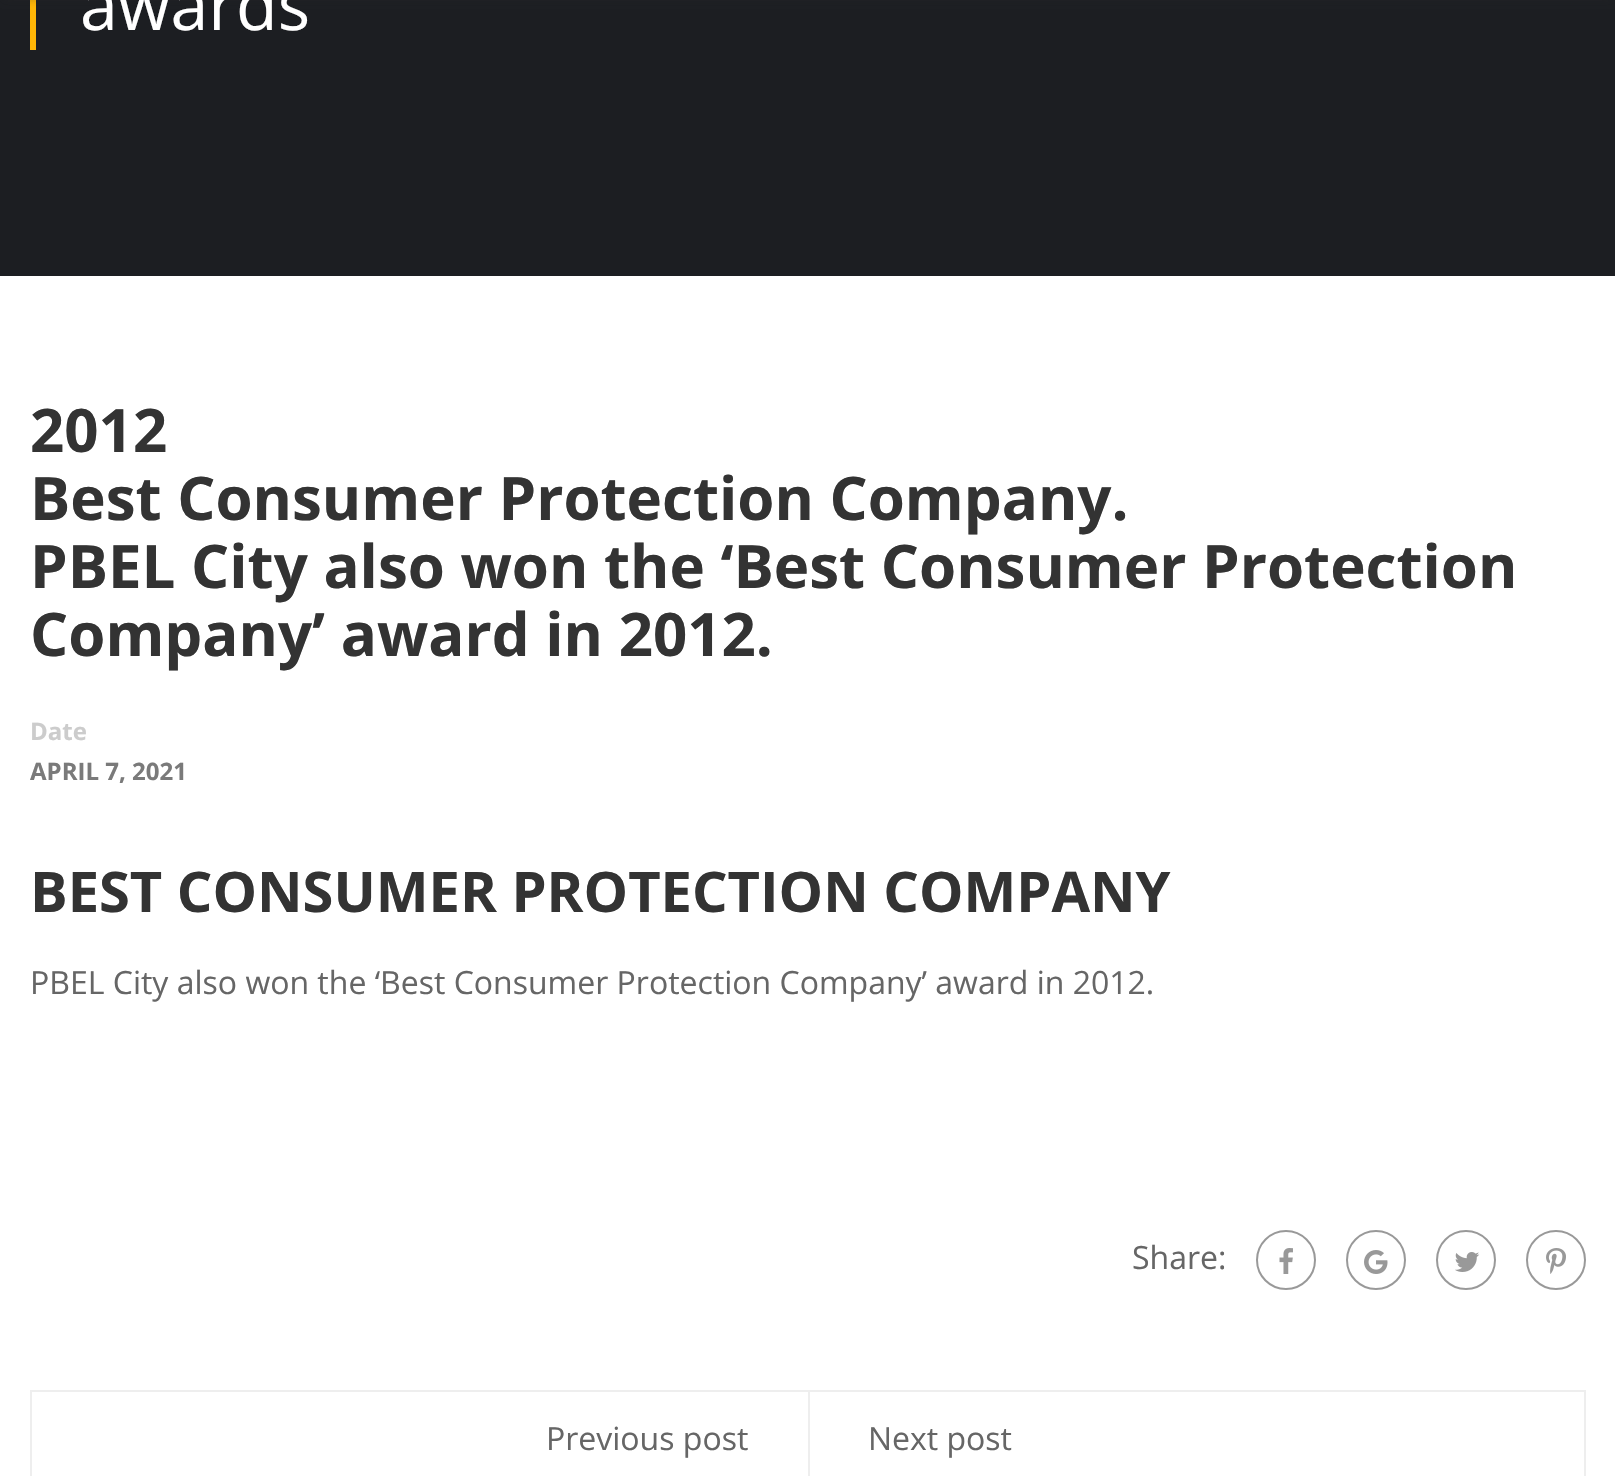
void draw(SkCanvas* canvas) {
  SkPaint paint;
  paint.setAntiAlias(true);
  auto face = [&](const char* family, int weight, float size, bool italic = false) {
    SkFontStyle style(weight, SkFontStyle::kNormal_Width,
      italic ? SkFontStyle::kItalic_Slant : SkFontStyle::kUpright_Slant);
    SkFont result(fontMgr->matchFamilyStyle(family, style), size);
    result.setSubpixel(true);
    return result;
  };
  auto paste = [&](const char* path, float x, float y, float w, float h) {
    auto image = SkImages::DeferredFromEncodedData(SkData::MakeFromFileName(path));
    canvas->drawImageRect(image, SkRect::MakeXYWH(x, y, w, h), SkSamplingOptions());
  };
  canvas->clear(0xffffffff);
  paint.setColor(0xff1c1e22);
  canvas->drawRect(SkRect::MakeXYWH(0, 0, 1615, 276), paint);
  paint.setColor(0xffffb606);
  canvas->drawRect(SkRect::MakeXYWH(30, 0, 6, 50), paint);
  paint.setColor(0x662a2a2a);
  paint.setMaskFilter(SkMaskFilter::MakeBlur(kNormal_SkBlurStyle, 5));
  canvas->drawRect(SkRect::MakeXYWH(4, -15, 1608, 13), paint);
  paint.setMaskFilter(nullptr);
  paint.setStroke(true);
  paint.setStrokeWidth(2);
  paint.setColor(0xff999999);
  canvas->drawCircle(1286, 1260, 29, paint);
  paste("img/1.png", 1279, 1248, 14, 26);
  canvas->drawCircle(1376, 1260, 29, paint);
  paste("img/2.png", 1364, 1250, 24, 24);
  canvas->drawCircle(1466, 1260, 29, paint);
  paste("img/3.png", 1455, 1252, 25, 20);
  canvas->drawCircle(1556, 1260, 29, paint);
  paste("img/4.png", 1546, 1248, 20, 26);
  paint.setColor(0xffeeeeee);
  canvas->drawRect(SkRect::MakeXYWH(31, 1391, 1554, 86), paint);
  paint.setStroke(false);
  canvas->drawRect(SkRect::MakeXYWH(808, 1392, 2, 84), paint);
  auto f0 = face("Open Sans", 400, 68);
  paint.setColor(0xffffffff);
  canvas->drawString("awards", 80, 30, f0, paint);
  auto f1 = face("Open Sans", 700, 60);
  paint.setColor(0xff333333);
  {
    const struct { const char* s; float x, y; } items[] = {
      {"2012", 30, 452},
      {"Best Consumer Protection Company.", 30, 520},
      {"PBEL City also won the ‘Best Consumer Protection", 30, 588},
      {"Company’ award in 2012.", 30, 656},
    };
    for (auto [s, x, y] : items) {
      canvas->drawString(s, x, y, f1, paint);
    }
  }
  auto f2 = face("Open Sans", 700, 24);
  paint.setColor(0xffcccccc);
  canvas->drawString("Date", 30, 740, f2, paint);
  paint.setColor(0xff7a7a7a);
  canvas->drawString("APRIL 7, 2021", 30, 780, f2, paint);
  auto f3 = face("Open Sans", 700, 56);
  paint.setColor(0xff333333);
  canvas->drawString("BEST CONSUMER PROTECTION COMPANY", 30, 912, f3, paint);
  auto f4 = face("Open Sans", 400, 32);
  paint.setColor(0xff666666);
  {
    const struct { const char* s; float x, y; } items[] = {
      {"PBEL City also won the ‘Best Consumer Protection Company’ award in 2012.", 30, 994},
      {"Share:", 1132, 1269},
      {"Previous post", 546, 1450},
      {"Next post", 868, 1450},
    };
    for (auto [s, x, y] : items) {
      canvas->drawString(s, x, y, f4, paint);
    }
  }
}
